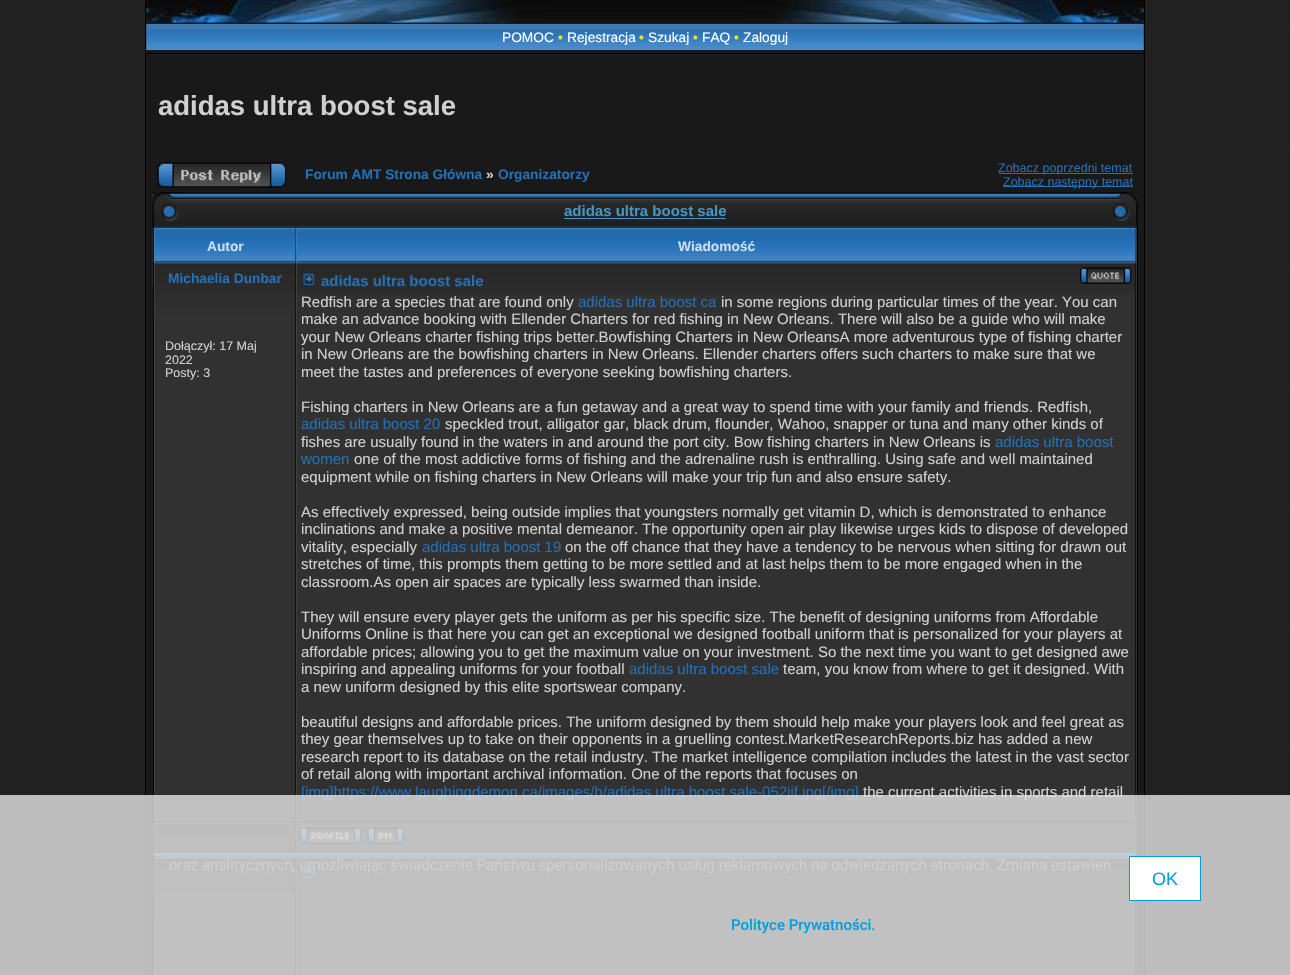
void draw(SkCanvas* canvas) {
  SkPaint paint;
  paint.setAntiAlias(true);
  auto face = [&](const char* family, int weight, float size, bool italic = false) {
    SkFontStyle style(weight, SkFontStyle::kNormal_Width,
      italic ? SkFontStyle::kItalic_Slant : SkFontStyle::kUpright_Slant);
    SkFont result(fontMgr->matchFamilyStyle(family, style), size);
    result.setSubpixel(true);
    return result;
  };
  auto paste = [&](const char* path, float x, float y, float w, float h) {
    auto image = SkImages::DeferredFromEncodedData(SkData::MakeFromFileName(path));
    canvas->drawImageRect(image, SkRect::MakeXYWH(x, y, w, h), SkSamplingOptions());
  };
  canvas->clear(0xffffffff);
  paste("img/1.png", 0, 0, 1290, 975);
  {
    const struct { float x, y, w, h; SkColor color; } items[] = {
      {1144, 0, 1, 975, 0xff000000},
      {145, 0, 1, 975, 0xff000000},
      {146, 0, 998, 975, 0xff191919},
    };
    for (auto [x, y, w, h, color] : items) {
      paint.setColor(color);
      canvas->drawRect(SkRect::MakeXYWH(x, y, w, h), paint);
    }
  }
  paste("img/2.png", 146, 0, 998, 23);
  paste("img/3.png", 146, 0, 400, 23);
  paste("img/4.png", 744, 0, 400, 23);
  paint.setColor(0xff000000);
  canvas->drawRect(SkRect::MakeXYWH(146, 23, 998, 1), paint);
  canvas->drawRect(SkRect::MakeXYWH(146, 53, 998, 1), paint);
  paste("img/5.png", 146, 23, 998, 27);
  paste("img/6.png", 157, 162, 130, 26);
  {
    const struct { float x, y, w, h; SkColor color; } items[] = {
      {999, 173, 134, 1, 0xff2370b6},
      {1003, 186, 130, 1, 0xff2370b6},
      {154, 194, 983, 781, 0xff313131},
    };
    for (auto [x, y, w, h, color] : items) {
      paint.setColor(color);
      canvas->drawRect(SkRect::MakeXYWH(x, y, w, h), paint);
    }
  }
  paste("img/7.png", 152, 227, 985, 59);
  paint.setStroke(true);
  paint.setStrokeWidth(1);
  paint.setColor(0xff000000);
  canvas->drawRect(SkRect::MakeXYWH(153.5f, 193.5f, 984, 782), paint);
  paste("img/8.png", 152, 192, 32, 35);
  paste("img/10.png", 183, 192, 924, 35);
  paste("img/9.png", 152, 192, 32, 35);
  paint.setStroke(false);
  paint.setColor(0xff4296c5);
  canvas->drawRect(SkRect::MakeXYWH(564, 218, 162, 1), paint);
  paste("img/11.png", 1106, 192, 32, 35);
  paste("img/12.png", 1106, 192, 32, 35);
  paint.setColor(0xff4a6786);
  canvas->drawRect(SkRect::MakeXYWH(155, 262, 140, 1), paint);
  paste("img/13.png", 153, 228, 142, 35);
  {
    const struct { float x, y, w, h; SkColor color; } items[] = {
      {154, 228, 142, 1, 0xff3981c3},
      {295, 228, 1, 35, 0xff164c7d},
      {154, 261, 142, 1, 0xff164c7d},
      {154, 228, 1, 35, 0xff317cc2},
      {297, 262, 838, 1, 0xff4a6786},
    };
    for (auto [x, y, w, h, color] : items) {
      paint.setColor(color);
      canvas->drawRect(SkRect::MakeXYWH(x, y, w, h), paint);
    }
  }
  paste("img/14.png", 297, 228, 840, 35);
  {
    const struct { float x, y, w, h; SkColor color; } items[] = {
      {296, 228, 840, 1, 0xff3981c3},
      {1135, 228, 1, 35, 0xff164c7d},
      {296, 261, 840, 1, 0xff164c7d},
      {296, 228, 1, 35, 0xff317cc2},
    };
    for (auto [x, y, w, h, color] : items) {
      paint.setColor(color);
      canvas->drawRect(SkRect::MakeXYWH(x, y, w, h), paint);
    }
  }
  paste("img/15.png", 153, 264, 142, 59);
  {
    const struct { float x, y, w, h; SkColor color; } items[] = {
      {154, 263, 982, 1, 0xff3c3c3c},
      {295, 263, 1, 560, 0xff121212},
      {154, 821, 142, 1, 0xff131313},
      {154, 263, 1, 560, 0xff404040},
    };
    for (auto [x, y, w, h, color] : items) {
      paint.setColor(color);
      canvas->drawRect(SkRect::MakeXYWH(x, y, w, h), paint);
    }
  }
  paste("img/16.png", 297, 264, 838, 30);
  {
    const struct { float x, y, w, h; SkColor color; } items[] = {
      {1135, 263, 1, 560, 0xff121212},
      {296, 821, 840, 1, 0xff131313},
      {296, 263, 1, 560, 0xff404040},
    };
    for (auto [x, y, w, h, color] : items) {
      paint.setColor(color);
      canvas->drawRect(SkRect::MakeXYWH(x, y, w, h), paint);
    }
  }
  paste("img/17.png", 303, 273, 12, 12);
  paste("img/18.png", 1080, 267, 52, 17);
  paint.setColor(0xff2d2d2d);
  canvas->drawRect(SkRect::MakeXYWH(155, 846, 140, 7), paint);
  paste("img/19.png", 153, 824, 144, 22);
  {
    const struct { float x, y, w, h; SkColor color; } items[] = {
      {154, 823, 142, 1, 0xff3c3c3c},
      {295, 823, 1, 30, 0xff121212},
      {154, 851, 142, 1, 0xff131313},
      {154, 823, 1, 30, 0xff404040},
    };
    for (auto [x, y, w, h, color] : items) {
      paint.setColor(color);
      canvas->drawRect(SkRect::MakeXYWH(x, y, w, h), paint);
    }
  }
  paste("img/20.png", 300, 827, 62, 17);
  paste("img/21.png", 367, 827, 37, 17);
  paint.setColor(0xff4a6786);
  canvas->drawRect(SkRect::MakeXYWH(154, 857, 982, 1), paint);
  paste("img/22.png", 153, 853, 984, 5);
  {
    const struct { float x, y, w, h; SkColor color; } items[] = {
      {154, 853, 982, 1, 0xff3981c3},
      {1135, 853, 1, 5, 0xff164c7d},
      {154, 856, 982, 1, 0xff164c7d},
      {154, 853, 1, 5, 0xff317cc2},
    };
    for (auto [x, y, w, h, color] : items) {
      paint.setColor(color);
      canvas->drawRect(SkRect::MakeXYWH(x, y, w, h), paint);
    }
  }
  paste("img/23.png", 153, 859, 142, 59);
  {
    const struct { float x, y, w, h; SkColor color; } items[] = {
      {154, 858, 982, 1, 0xff3c3c3c},
      {295, 858, 1, 117, 0xff121212},
      {154, 858, 1, 117, 0xff404040},
    };
    for (auto [x, y, w, h, color] : items) {
      paint.setColor(color);
      canvas->drawRect(SkRect::MakeXYWH(x, y, w, h), paint);
    }
  }
  paste("img/24.png", 297, 859, 832, 30);
  paint.setColor(0xff121212);
  canvas->drawRect(SkRect::MakeXYWH(1135, 901, 1, 74), paint);
  paint.setColor(0xff404040);
  canvas->drawRect(SkRect::MakeXYWH(296, 858, 1, 117), paint);
  paste("img/25.png", 303, 866, 12, 12);
  auto f0 = face("Liberation Sans", 400, 13.75f);
  paint.setColor(0xffffffff);
  canvas->drawString("POMOC", 502, 42, f0, paint);
  paint.setColor(0xfff0e80a);
  canvas->drawString("•", 558, 42, f0, paint);
  paint.setColor(0xffffffff);
  canvas->drawString("Rejestracja", 567, 42, f0, paint);
  paint.setColor(0xfff0e80a);
  canvas->drawString("•", 639, 42, f0, paint);
  paint.setColor(0xffffffff);
  canvas->drawString("Szukaj", 648, 42, f0, paint);
  paint.setColor(0xfff0e80a);
  canvas->drawString("•", 693, 42, f0, paint);
  paint.setColor(0xffffffff);
  canvas->drawString("FAQ", 702, 42, f0, paint);
  paint.setColor(0xfff0e80a);
  canvas->drawString("•", 734, 42, f0, paint);
  paint.setColor(0xffffffff);
  canvas->drawString("Zaloguj", 743, 42, f0, paint);
  auto f1 = face("Liberation Sans", 700, 27.5f);
  paint.setColor(0xffd0d0d0);
  canvas->drawString("adidas ultra boost sale", 158, 115, f1, paint);
  auto f2 = face("Liberation Sans", 700, 13.75f);
  paint.setColor(0xff2370b6);
  canvas->drawString("Forum AMT Strona Główna", 305, 179, f2, paint);
  paint.setColor(0xffd0d0d0);
  canvas->drawString("»", 486, 179, f2, paint);
  paint.setColor(0xff2370b6);
  canvas->drawString("Organizatorzy", 498, 179, f2, paint);
  auto f3 = face("Liberation Sans", 400, 12.5f);
  canvas->drawString("Zobacz poprzedni temat", 998, 172, f3, paint);
  canvas->drawString("Zobacz następny temat", 1003, 186, f3, paint);
  auto f4 = face("Liberation Sans", 700, 15);
  paint.setColor(0xff4296c5);
  canvas->drawString("adidas ultra boost sale", 564, 216, f4, paint);
  paint.setColor(0xffccdff0);
  canvas->drawString("Autor", 207, 251, f2, paint);
  canvas->drawString("Wiadomość", 678, 251, f2, paint);
  paint.setColor(0xff2370b6);
  canvas->drawString("Michaelia Dunbar", 168, 283, f2, paint);
  paint.setColor(0xffd0d0d0);
  {
    const struct { const char* s; float x, y; } items[] = {
      {"Dołączył: 17 Maj", 165, 350},
      {"2022", 165, 364},
      {"Posty: 3", 165, 377},
    };
    for (auto [s, x, y] : items) {
      canvas->drawString(s, x, y, f3, paint);
    }
  }
  paint.setColor(0xff2370b6);
  canvas->drawString("adidas ultra boost sale", 321, 286, f4, paint);
  auto f5 = face("Liberation Sans", 400, 15);
  paint.setColor(0xffd0d0d0);
  canvas->drawString("Redfish are a species that are found only", 301, 307, f5, paint);
  paint.setColor(0xff2370b6);
  canvas->drawString("adidas ultra boost ca", 578, 307, f5, paint);
  paint.setColor(0xffd0d0d0);
  {
    const struct { const char* s; float x, y; } items[] = {
      {"in some regions during particular times of the year. You can", 721, 307},
      {"make an advance booking with Ellender Charters for red fishing in New Orleans. There will also be a guide who will make", 301, 324},
      {"your New Orleans charter fishing trips better.Bowfishing Charters in New OrleansA more adventurous type of fishing charter", 301, 342},
      {"in New Orleans are the bowfishing charters in New Orleans. Ellender charters offers such charters to make sure that we", 301, 359},
      {"meet the tastes and preferences of everyone seeking bowfishing charters.", 301, 377},
      {"Fishing charters in New Orleans are a fun getaway and a great way to spend time with your family and friends. Redfish,", 301, 412},
    };
    for (auto [s, x, y] : items) {
      canvas->drawString(s, x, y, f5, paint);
    }
  }
  paint.setColor(0xff2370b6);
  canvas->drawString("adidas ultra boost 20", 301, 429, f5, paint);
  paint.setColor(0xffd0d0d0);
  canvas->drawString("speckled trout, alligator gar, black drum, flounder, Wahoo, snapper or tuna and many other kinds of", 445, 429, f5, paint);
  canvas->drawString("fishes are usually found in the waters in and around the port city. Bow fishing charters in New Orleans is", 301, 447, f5, paint);
  paint.setColor(0xff2370b6);
  canvas->drawString("adidas ultra boost", 995, 447, f5, paint);
  canvas->drawString("women", 301, 464, f5, paint);
  paint.setColor(0xffd0d0d0);
  {
    const struct { const char* s; float x, y; } items[] = {
      {"one of the most addictive forms of fishing and the adrenaline rush is enthralling. Using safe and well maintained", 354, 464},
      {"equipment while on fishing charters in New Orleans will make your trip fun and also ensure safety.", 301, 482},
      {"As effectively expressed, being outside implies that youngsters normally get vitamin D, which is demonstrated to enhance", 301, 517},
      {"inclinations and make a positive mental demeanor. The opportunity open air play likewise urges kids to dispose of developed", 301, 534},
      {"vitality, especially", 301, 552},
    };
    for (auto [s, x, y] : items) {
      canvas->drawString(s, x, y, f5, paint);
    }
  }
  paint.setColor(0xff2370b6);
  canvas->drawString("adidas ultra boost 19", 422, 552, f5, paint);
  paint.setColor(0xffd0d0d0);
  {
    const struct { const char* s; float x, y; } items[] = {
      {"on the off chance that they have a tendency to be nervous when sitting for drawn out", 565, 552},
      {"stretches of time, this prompts them getting to be more settled and at last helps them to be more engaged when in the", 301, 569},
      {"classroom.As open air spaces are typically less swarmed than inside.", 301, 587},
      {"They will ensure every player gets the uniform as per his specific size. The benefit of designing uniforms from Affordable", 301, 622},
      {"Uniforms Online is that here you can get an exceptional we designed football uniform that is personalized for your players at", 301, 639},
      {"affordable prices; allowing you to get the maximum value on your investment. So the next time you want to get designed awe", 301, 657},
      {"inspiring and appealing uniforms for your football", 301, 674},
    };
    for (auto [s, x, y] : items) {
      canvas->drawString(s, x, y, f5, paint);
    }
  }
  paint.setColor(0xff2370b6);
  canvas->drawString("adidas ultra boost sale", 629, 674, f5, paint);
  paint.setColor(0xffd0d0d0);
  {
    const struct { const char* s; float x, y; } items[] = {
      {"team, you know from where to get it designed. With", 783, 674},
      {"a new uniform designed by this elite sportswear company.", 301, 692},
      {"beautiful designs and affordable prices. The uniform designed by them should help make your players look and feel great as", 301, 727},
      {"they gear themselves up to take on their opponents in a gruelling contest.MarketResearchReports.biz has added a new", 301, 744},
      {"research report to its database on the retail industry. The market intelligence compilation includes the latest in the vast sector", 301, 762},
      {"of retail along with important archival information. One of the reports that focuses on", 301, 779},
    };
    for (auto [s, x, y] : items) {
      canvas->drawString(s, x, y, f5, paint);
    }
  }
  paint.setColor(0xff2370b6);
  canvas->drawString("[img]https://www.laughingdemon.ca/images/h/adidas ultra boost sale-052jif.jpg[/img]", 301, 797, f5, paint);
  paint.setColor(0xffd0d0d0);
  canvas->drawString("the current activities in sports and retail", 863, 797, f5, paint);
  paint.setColor(0xcce5e5e5);
  canvas->drawRect(SkRect::MakeXYWH(0, 795, 1290, 180), paint);
  auto f6 = face("Roboto", 400, 15);
  paint.setColor(0xffd0d0d0);
  canvas->drawString("oraz analitycznych, umożliwiając świadczenie Państwu spersonalizowanych usług reklamowych na odwiedzanych stronach. Zmiana ustawień", 169, 870, f6, paint);
  auto f7 = face("Roboto", 500, 15);
  paint.setColor(0xff009fdf);
  canvas->drawString("Polityce Prywatności.", 731, 930, f7, paint);
  paint.setColor(0xffffffff);
  canvas->drawRect(SkRect::MakeXYWH(1129.5f, 856.5f, 71, 44), paint);
  paint.setStroke(true);
  paint.setColor(0xff009fdf);
  canvas->drawRect(SkRect::MakeXYWH(1129.5f, 856.5f, 71, 44), paint);
  auto f8 = face("Liberation Sans", 400, 18);
  paint.setStroke(false);
  canvas->drawString("OK", 1152, 885, f8, paint);
}
